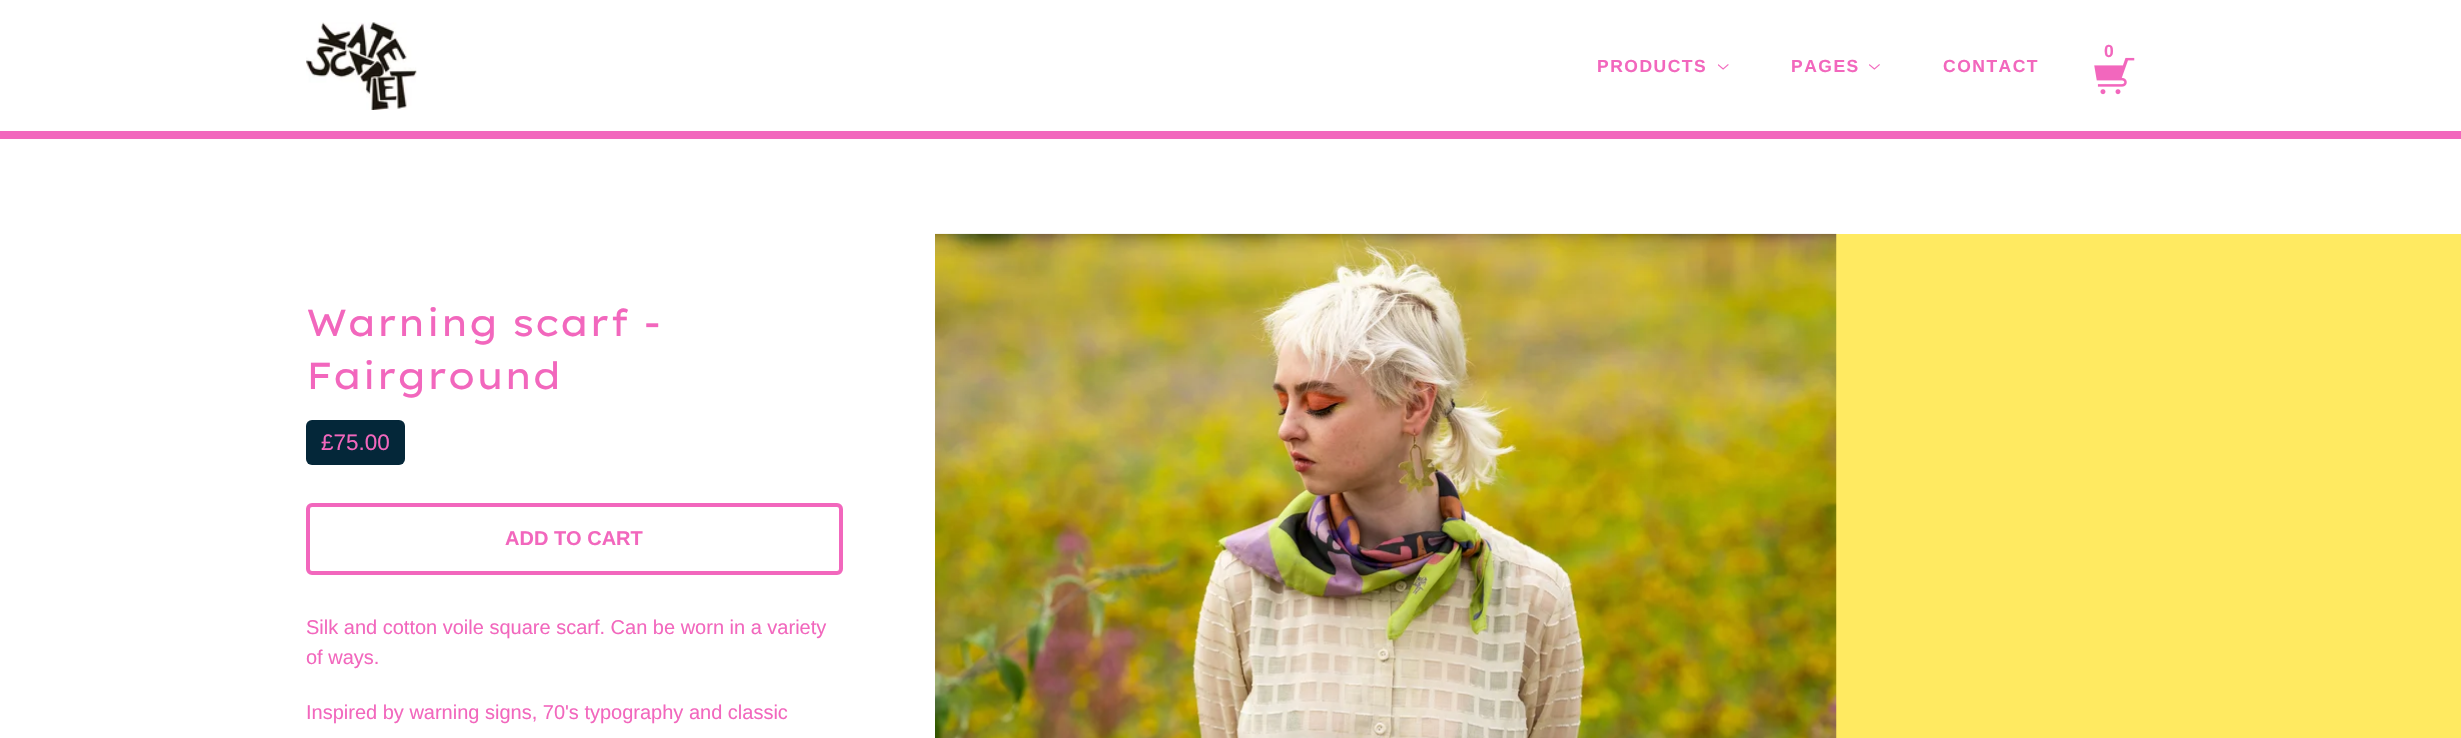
void draw(SkCanvas* canvas) {
  SkPaint paint;
  paint.setAntiAlias(true);
  auto face = [&](const char* family, int weight, float size, bool italic = false) {
    SkFontStyle style(weight, SkFontStyle::kNormal_Width,
      italic ? SkFontStyle::kItalic_Slant : SkFontStyle::kUpright_Slant);
    SkFont result(fontMgr->matchFamilyStyle(family, style), size);
    result.setSubpixel(true);
    return result;
  };
  auto writeSpaced = [&](const char* s, float x, float y, const SkFont& font, const SkPaint& ink, float letter, float word) {
    std::vector<SkGlyphID> glyphs(font.countText(s, strlen(s), SkTextEncoding::kUTF8));
    std::vector<float> xs(glyphs.size());
    font.textToGlyphs(s, strlen(s), SkTextEncoding::kUTF8, glyphs);
    font.getXPos(glyphs, xs, x);
    float extra = 0;
    for (size_t i = 0; i < glyphs.size(); i++) {
      xs[i] += extra;
      extra += letter + word * (glyphs[i] == font.unicharToGlyph(' '));
    }
    canvas->drawTextBlob(SkTextBlob::MakeFromPosHGlyphs(glyphs, xs, y, font), 0, 0, ink);
  };
  auto paste = [&](const char* path, float x, float y, float w, float h) {
    auto image = SkImages::DeferredFromEncodedData(SkData::MakeFromFileName(path));
    canvas->drawImageRect(image, SkRect::MakeXYWH(x, y, w, h), SkSamplingOptions());
  };
  canvas->clear(0xffffffff);
  paint.setColor(0xfff267bd);
  canvas->drawRect(SkRect::MakeXYWH(0, 131, 2461, 8), paint);
  paste("img/1.png", 306, 22, 111, 88);
  paste("img/3.png", 1718, 64, 11, 6);
  paste("img/4.png", 1869, 64, 11, 6);
  paint.setColor(0xff042739);
  canvas->drawRoundRect(SkRect::MakeXYWH(306, 420, 99, 45), 6, 6, paint);
  paint.setStroke(true);
  paint.setStrokeWidth(4);
  paint.setColor(0xfff267bd);
  canvas->drawRoundRect(SkRect::MakeXYWH(308, 505, 533, 68), 4, 4, paint);
  paint.setStroke(false);
  paint.setColor(0xffffea61);
  canvas->drawRect(SkRect::MakeXYWH(1836, 234, 625, 504), paint);
  paste("img/5.png", 935, 233, 902, 505);
  auto f0 = face("Liberation Sans", 700, 17.5f);
  paint.setColor(0xfff267bd);
  canvas->drawString("0", 2104, 57, f0, paint);
  paste("img/2.png", 2094, 57, 41, 38);
  {
    const struct { const char* s; float x, y; } items[] = {
      {"PRODUCTS", 1597, 72},
      {"PAGES", 1791, 72},
      {"CONTACT", 1943, 72},
    };
    for (auto [s, x, y] : items) {
      writeSpaced(s, x, y, f0, paint, 1.5f, 0);
    }
  }
  auto f1 = face("Lexend Exa", 400, 37.5f);
  canvas->drawString("Warning scarf -", 306, 336, f1, paint);
  canvas->drawString("Fairground", 306, 389, f1, paint);
  auto f2 = face("Liberation Sans", 400, 22.5f);
  canvas->drawString("£75.00", 321, 450, f2, paint);
  auto f3 = face("Liberation Sans", 700, 20);
  canvas->drawString("ADD TO CART", 505, 545, f3, paint);
  auto f4 = face("Liberation Sans", 400, 20);
  {
    const struct { const char* s; float x, y; } items[] = {
      {"Silk and cotton voile square scarf. Can be worn in a variety", 306, 634},
      {"of ways.", 306, 664},
      {"Inspired by warning signs, 70's typography and classic", 306, 719},
    };
    for (auto [s, x, y] : items) {
      canvas->drawString(s, x, y, f4, paint);
    }
  }
}
